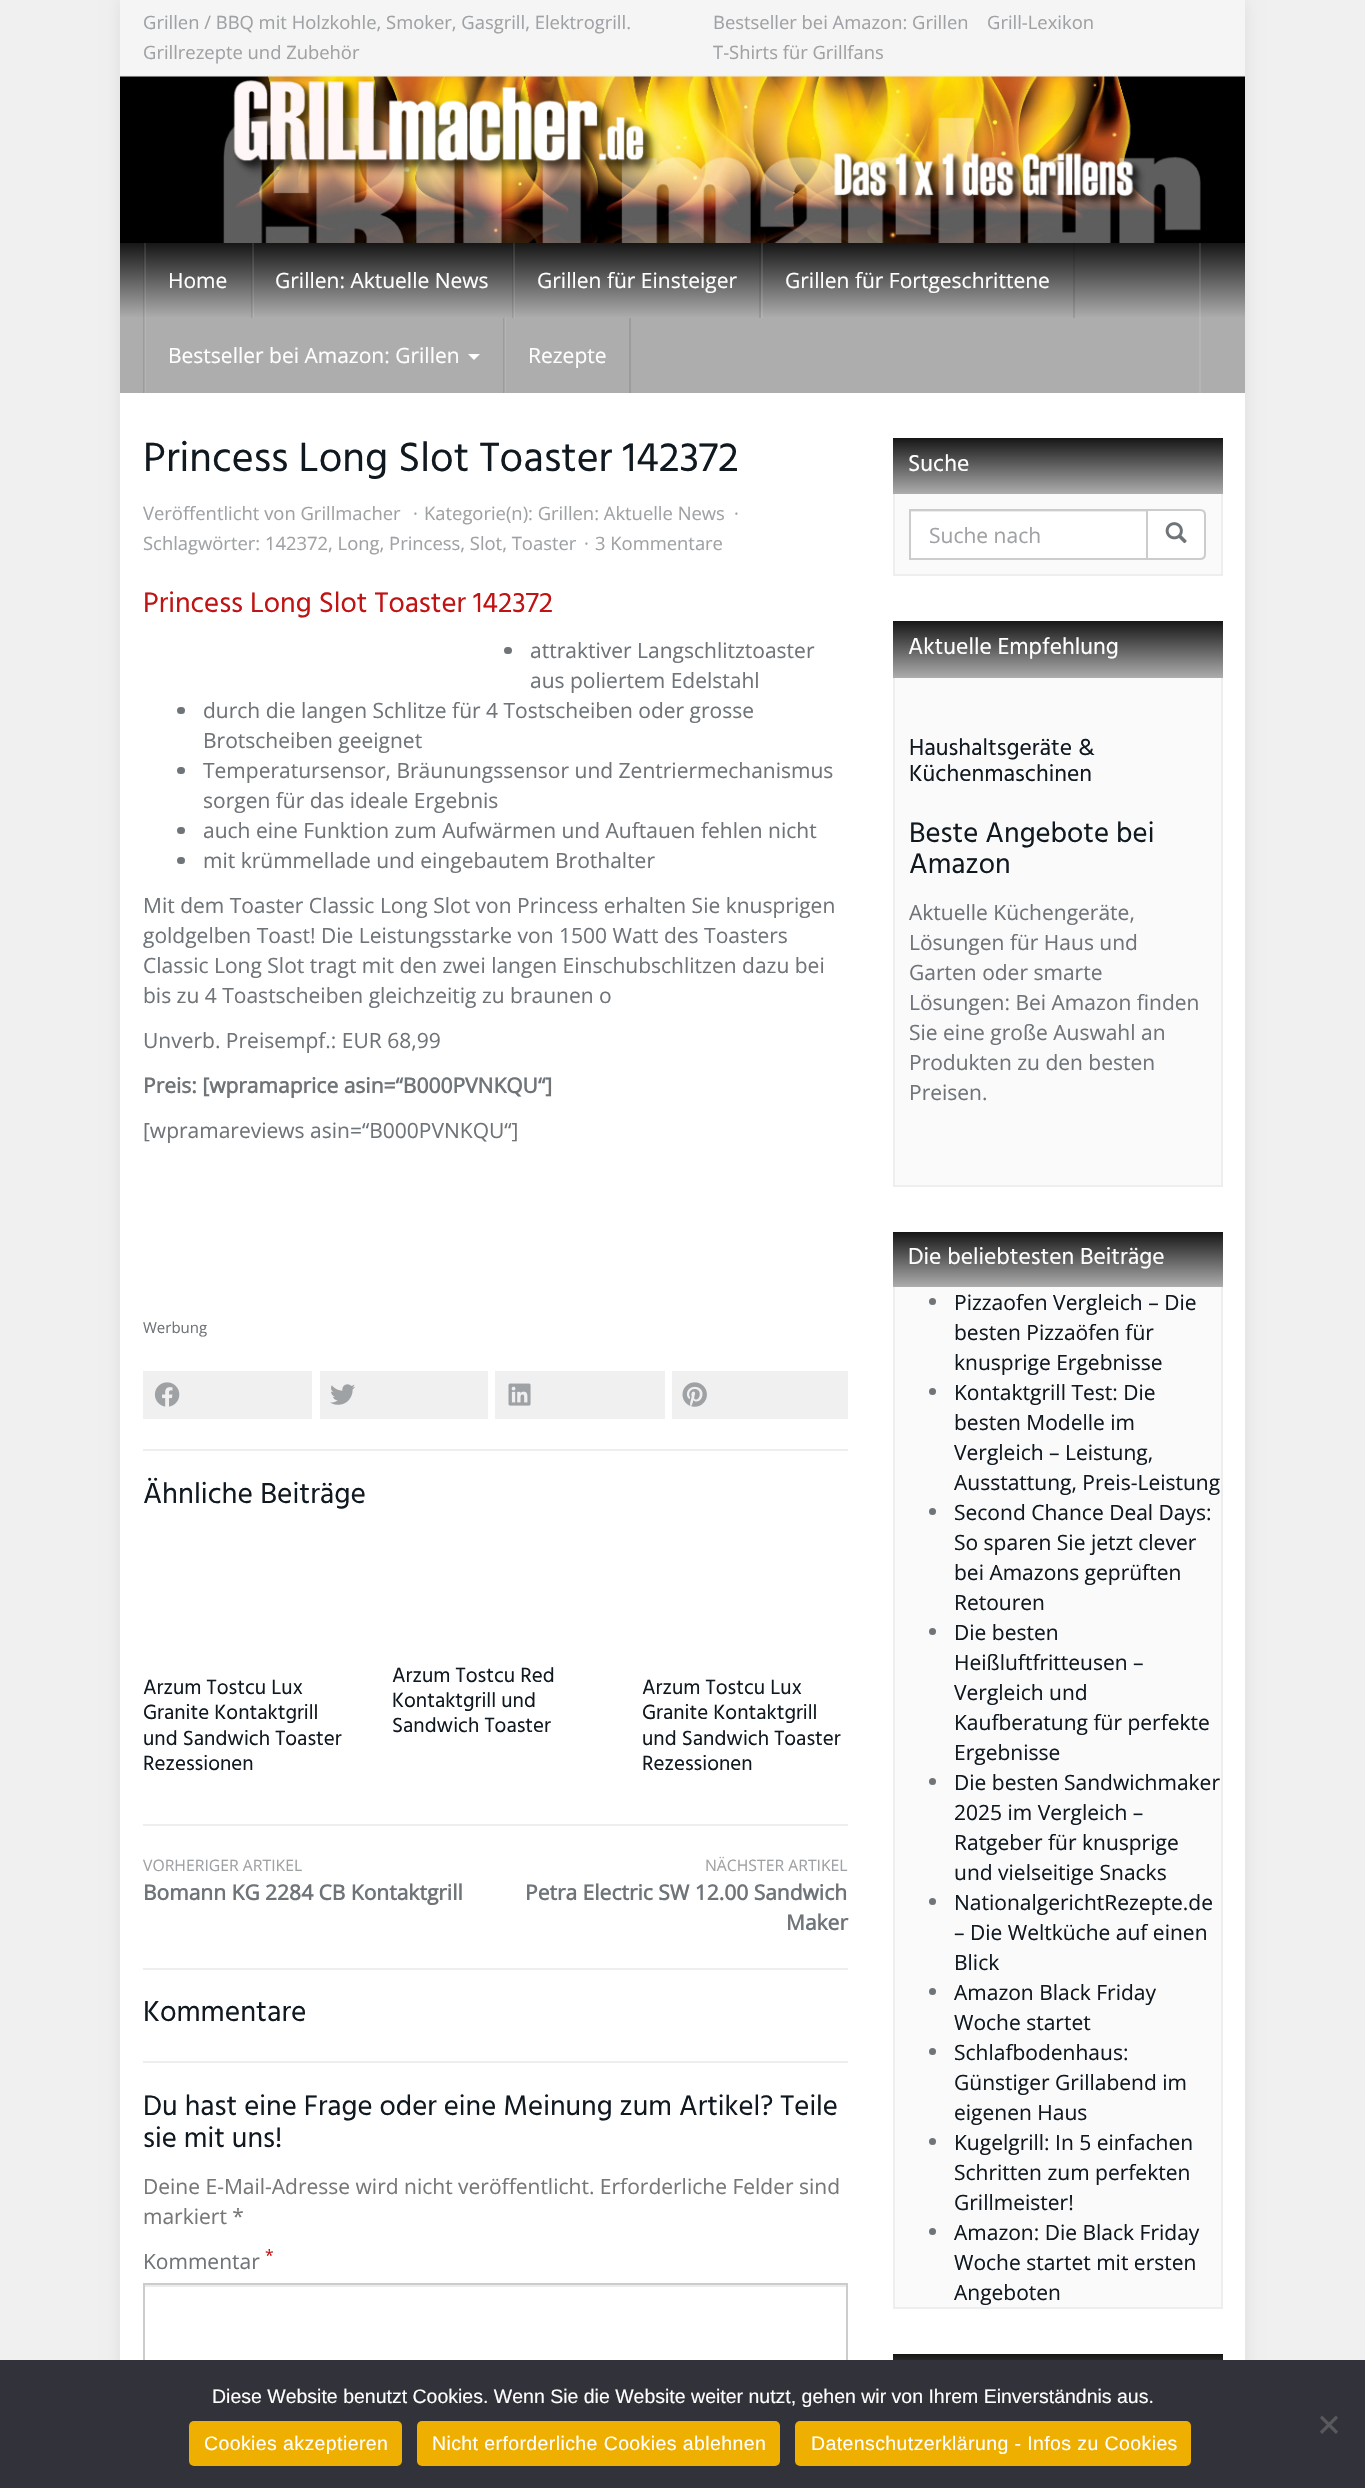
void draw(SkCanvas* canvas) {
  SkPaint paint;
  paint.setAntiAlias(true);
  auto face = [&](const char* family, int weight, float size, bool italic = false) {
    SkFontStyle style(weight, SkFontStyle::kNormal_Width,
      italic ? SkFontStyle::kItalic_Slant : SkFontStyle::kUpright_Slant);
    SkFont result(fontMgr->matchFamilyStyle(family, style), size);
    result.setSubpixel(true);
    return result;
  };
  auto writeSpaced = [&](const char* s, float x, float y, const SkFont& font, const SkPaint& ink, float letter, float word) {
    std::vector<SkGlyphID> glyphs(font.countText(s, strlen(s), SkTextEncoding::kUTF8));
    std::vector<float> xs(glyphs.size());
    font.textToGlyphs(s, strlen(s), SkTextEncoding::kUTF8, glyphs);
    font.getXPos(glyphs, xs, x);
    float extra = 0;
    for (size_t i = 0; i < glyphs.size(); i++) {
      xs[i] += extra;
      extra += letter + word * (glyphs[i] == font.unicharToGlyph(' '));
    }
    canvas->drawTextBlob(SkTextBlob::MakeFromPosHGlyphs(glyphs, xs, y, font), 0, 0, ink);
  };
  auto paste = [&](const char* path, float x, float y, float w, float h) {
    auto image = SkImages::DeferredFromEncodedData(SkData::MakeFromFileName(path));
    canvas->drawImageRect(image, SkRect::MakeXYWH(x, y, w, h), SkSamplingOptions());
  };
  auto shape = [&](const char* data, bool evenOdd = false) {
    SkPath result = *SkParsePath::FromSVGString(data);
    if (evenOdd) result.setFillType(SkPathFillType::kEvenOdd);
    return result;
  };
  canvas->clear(0xfff0f0f0);
  paint.setColor(0xffdddddd);
  paint.setMaskFilter(SkMaskFilter::MakeBlur(kNormal_SkBlurStyle, 7.5f));
  canvas->drawRect(SkRect::MakeXYWH(120, 0, 1125, 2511), paint);
  paint.setMaskFilter(nullptr);
  {
    const struct { float x, y, w, h; SkColor color; } items[] = {
      {120, 393, 1125, 1967, 0xffffffff},
      {120, 0, 1125, 75, 0xfff5f5f5},
      {120, 75, 1125, 2, 0xfff0f0f0},
    };
    for (auto [x, y, w, h, color] : items) {
      paint.setColor(color);
      canvas->drawRect(SkRect::MakeXYWH(x, y, w, h), paint);
    }
  }
  paste("img/1.png", 120, 76, 1125, 167);
  {
    const SkColor colors[] = {0xff161616, 0xffadadad};
    const float stops[] = {0, 0.5f};
    const SkPoint ends[] = {{683, 243}, {683, 393}};
    paint.setShader(SkGradientShader::MakeLinear(ends, colors, stops, 2, SkTileMode::kClamp));
    paint.setAlpha(255);
  }
  canvas->drawRect(SkRect::MakeXYWH(120, 243, 1125, 150), paint);
  {
    const SkColor colors[] = {0xff2d2d2d, 0xffb5b5b5};
    const float stops[] = {0, 0.5f};
    const SkPoint ends[] = {{683, 243}, {683, 393}};
    paint.setShader(SkGradientShader::MakeLinear(ends, colors, stops, 2, SkTileMode::kClamp));
    paint.setAlpha(255);
  }
  canvas->drawRect(SkRect::MakeXYWH(505, 318, 1, 75), paint);
  canvas->drawRect(SkRect::MakeXYWH(145, 318, 1, 75), paint);
  canvas->drawRect(SkRect::MakeXYWH(761, 243, 2, 75), paint);
  {
    const SkColor colors[] = {0xff141414, 0xff9c9c9c};
    const float stops[] = {0, 0.5f};
    const SkPoint ends[] = {{683, 243}, {683, 393}};
    paint.setShader(SkGradientShader::MakeLinear(ends, colors, stops, 2, SkTileMode::kClamp));
    paint.setAlpha(255);
  }
  canvas->drawRect(SkRect::MakeXYWH(1073, 243, 2, 75), paint);
  {
    const SkColor colors[] = {0xff2d2d2d, 0xffb5b5b5};
    const float stops[] = {0, 0.5f};
    const SkPoint ends[] = {{683, 243}, {683, 393}};
    paint.setShader(SkGradientShader::MakeLinear(ends, colors, stops, 2, SkTileMode::kClamp));
    paint.setAlpha(255);
  }
  canvas->drawRect(SkRect::MakeXYWH(514, 243, 1, 75), paint);
  {
    const SkColor colors[] = {0xff141414, 0xff9c9c9c};
    const float stops[] = {0, 0.5f};
    const SkPoint ends[] = {{683, 243}, {683, 393}};
    paint.setShader(SkGradientShader::MakeLinear(ends, colors, stops, 2, SkTileMode::kClamp));
    paint.setAlpha(255);
  }
  canvas->drawRect(SkRect::MakeXYWH(759, 243, 2, 75), paint);
  {
    const SkColor colors[] = {0xff2d2d2d, 0xffb5b5b5};
    const float stops[] = {0, 0.5f};
    const SkPoint ends[] = {{683, 243}, {683, 393}};
    paint.setShader(SkGradientShader::MakeLinear(ends, colors, stops, 2, SkTileMode::kClamp));
    paint.setAlpha(255);
  }
  canvas->drawRect(SkRect::MakeXYWH(253, 243, 1, 75), paint);
  {
    const SkColor colors[] = {0xff141414, 0xff9c9c9c};
    const float stops[] = {0, 0.5f};
    const SkPoint ends[] = {{683, 243}, {683, 393}};
    paint.setShader(SkGradientShader::MakeLinear(ends, colors, stops, 2, SkTileMode::kClamp));
    paint.setAlpha(255);
  }
  canvas->drawRect(SkRect::MakeXYWH(512, 243, 1, 75), paint);
  {
    const SkColor colors[] = {0xff2c2c2c, 0xffa6a6a6};
    const float stops[] = {0, 0.5f};
    const SkPoint ends[] = {{683, 243}, {683, 393}};
    paint.setShader(SkGradientShader::MakeLinear(ends, colors, stops, 2, SkTileMode::kClamp));
    paint.setAlpha(255);
  }
  canvas->drawRect(SkRect::MakeXYWH(513, 243, 1, 75), paint);
  {
    const SkColor colors[] = {0xff2d2d2d, 0xffb5b5b5};
    const float stops[] = {0, 0.5f};
    const SkPoint ends[] = {{683, 243}, {683, 393}};
    paint.setShader(SkGradientShader::MakeLinear(ends, colors, stops, 2, SkTileMode::kClamp));
    paint.setAlpha(255);
  }
  canvas->drawRect(SkRect::MakeXYWH(145, 243, 1, 75), paint);
  {
    const SkColor colors[] = {0xff141414, 0xff9c9c9c};
    const float stops[] = {0, 0.5f};
    const SkPoint ends[] = {{683, 243}, {683, 393}};
    paint.setShader(SkGradientShader::MakeLinear(ends, colors, stops, 2, SkTileMode::kClamp));
    paint.setAlpha(255);
  }
  canvas->drawRect(SkRect::MakeXYWH(251, 243, 1, 75), paint);
  {
    const SkColor colors[] = {0xff2c2c2c, 0xffa6a6a6};
    const float stops[] = {0, 0.5f};
    const SkPoint ends[] = {{683, 243}, {683, 393}};
    paint.setShader(SkGradientShader::MakeLinear(ends, colors, stops, 2, SkTileMode::kClamp));
    paint.setAlpha(255);
  }
  canvas->drawRect(SkRect::MakeXYWH(252, 243, 1, 75), paint);
  {
    const SkColor colors[] = {0xff141414, 0xff9c9c9c};
    const float stops[] = {0, 0.5f};
    const SkPoint ends[] = {{683, 243}, {683, 393}};
    paint.setShader(SkGradientShader::MakeLinear(ends, colors, stops, 2, SkTileMode::kClamp));
    paint.setAlpha(255);
  }
  canvas->drawRect(SkRect::MakeXYWH(143, 243, 1, 150), paint);
  {
    const SkColor colors[] = {0xff2c2c2c, 0xffa6a6a6};
    const float stops[] = {0, 0.5f};
    const SkPoint ends[] = {{683, 243}, {683, 393}};
    paint.setShader(SkGradientShader::MakeLinear(ends, colors, stops, 2, SkTileMode::kClamp));
    paint.setAlpha(255);
  }
  canvas->drawRect(SkRect::MakeXYWH(144, 318, 1, 75), paint);
  canvas->drawRect(SkRect::MakeXYWH(144, 243, 1, 75), paint);
  {
    const SkColor colors[] = {0xff2d2d2d, 0xffb5b5b5};
    const float stops[] = {0, 0.5f};
    const SkPoint ends[] = {{683, 243}, {683, 393}};
    paint.setShader(SkGradientShader::MakeLinear(ends, colors, stops, 2, SkTileMode::kClamp));
    paint.setAlpha(255);
  }
  canvas->drawRect(SkRect::MakeXYWH(1199, 243, 2, 150), paint);
  paint.setShader(nullptr);
  paint.setColor(0xff9c9c9c);
  canvas->drawRect(SkRect::MakeXYWH(503, 318, 1, 75), paint);
  paint.setColor(0xffa6a6a6);
  canvas->drawRect(SkRect::MakeXYWH(504, 318, 1, 75), paint);
  paint.setColor(0xffffffff);
  canvas->drawPath(shape("M468 354H480L474 360Z"), paint);
  paint.setColor(0xff9c9c9c);
  canvas->drawRect(SkRect::MakeXYWH(629, 318, 2, 75), paint);
  paint.setColor(0xff6f7479);
  canvas->drawRoundRect(SkRect::MakeXYWH(504, 647, 8, 7), 3.5f, 3.5f, paint);
  canvas->drawRoundRect(SkRect::MakeXYWH(177, 707, 8, 7), 3.5f, 3.5f, paint);
  canvas->drawRoundRect(SkRect::MakeXYWH(177, 767, 8, 7), 3.5f, 3.5f, paint);
  canvas->drawRoundRect(SkRect::MakeXYWH(177, 827, 8, 7), 3.5f, 3.5f, paint);
  canvas->drawRoundRect(SkRect::MakeXYWH(177, 857, 8, 7), 3.5f, 3.5f, paint);
  paint.setColor(0xfff0f0f0);
  canvas->drawRect(SkRect::MakeXYWH(143, 1371, 169, 48), paint);
  paste("img/2.png", 154, 1382, 26, 25);
  canvas->drawRect(SkRect::MakeXYWH(320, 1371, 168, 48), paint);
  paste("img/3.png", 330, 1384, 25, 21);
  canvas->drawRect(SkRect::MakeXYWH(495, 1371, 170, 48), paint);
  paste("img/4.png", 508, 1383, 23, 23);
  canvas->drawRect(SkRect::MakeXYWH(672, 1371, 176, 48), paint);
  paste("img/5.png", 682, 1382, 25, 25);
  {
    const struct { float x, y, w, h; SkColor color; } items[] = {
      {143, 1449, 705, 2, 0xffeeeeee},
      {143, 1824, 705, 2, 0xffeeeeee},
      {143, 1968, 705, 2, 0xffeeeeee},
      {143, 2061, 705, 2, 0xffeeeeee},
      {144, 2285, 702, 2, 0xffececec},
    };
    for (auto [x, y, w, h, color] : items) {
      paint.setColor(color);
      canvas->drawRect(SkRect::MakeXYWH(x, y, w, h), paint);
    }
  }
  paint.setStroke(true);
  paint.setStrokeWidth(2);
  paint.setColor(0xffcccccc);
  canvas->drawRect(SkRect::MakeXYWH(144, 2284, 703, 169), paint);
  paint.setStroke(false);
  paint.setColor(0xfffafafa);
  canvas->drawRect(SkRect::MakeXYWH(895, 494, 326, 80), paint);
  paint.setStroke(true);
  paint.setColor(0xffeeeeee);
  canvas->drawRect(SkRect::MakeXYWH(894, 439, 328, 136), paint);
  paint.setStroke(false);
  {
    const SkColor colors[] = {0xff161616, 0xffadadad};
    const float stops[] = {0, 1};
    const SkPoint ends[] = {{1058, 438}, {1058, 494}};
    paint.setShader(SkGradientShader::MakeLinear(ends, colors, stops, 2, SkTileMode::kClamp));
    paint.setAlpha(255);
  }
  canvas->drawRect(SkRect::MakeXYWH(893, 438, 330, 56), paint);
  paint.setShader(nullptr);
  paint.setColor(0xffffffff);
  canvas->drawRect(SkRect::MakeXYWH(911, 512, 235, 46), paint);
  paint.setColor(0xffececec);
  canvas->drawRect(SkRect::MakeXYWH(911, 511, 235, 1), paint);
  paint.setStroke(true);
  paint.setColor(0xffcccccc);
  canvas->drawRect(SkRect::MakeXYWH(910, 510, 237, 49), paint);
  paint.setStroke(false);
  paint.setColor(0xffffffff);
  canvas->drawPath(shape("M1147 510H1200C1203 510 1205 512 1205 515V554C1205 557 1203 559 1200 559H1147Z"), paint);
  paint.setStroke(true);
  paint.setColor(0xffcccccc);
  canvas->drawPath(shape("M1147 510H1200C1203 510 1205 512 1205 515V554C1205 557 1203 559 1200 559H1147Z"), paint);
  paste("img/6.png", 1165, 522, 22, 22);
  paint.setStroke(false);
  paint.setColor(0xfffafafa);
  canvas->drawRect(SkRect::MakeXYWH(895, 678, 326, 507), paint);
  paint.setStroke(true);
  paint.setColor(0xffeeeeee);
  canvas->drawRect(SkRect::MakeXYWH(894, 622, 328, 564), paint);
  paint.setStroke(false);
  {
    const SkColor colors[] = {0xff161616, 0xffadadad};
    const float stops[] = {0, 1};
    const SkPoint ends[] = {{1058, 621}, {1058, 678}};
    paint.setShader(SkGradientShader::MakeLinear(ends, colors, stops, 2, SkTileMode::kClamp));
    paint.setAlpha(255);
  }
  canvas->drawRect(SkRect::MakeXYWH(893, 621, 330, 57), paint);
  paint.setShader(nullptr);
  paint.setColor(0xfffafafa);
  canvas->drawRect(SkRect::MakeXYWH(895, 1287, 326, 1020), paint);
  paint.setStroke(true);
  paint.setColor(0xffeeeeee);
  canvas->drawRect(SkRect::MakeXYWH(894, 1233, 328, 1075), paint);
  paint.setStroke(false);
  {
    const SkColor colors[] = {0xff161616, 0xffadadad};
    const float stops[] = {0, 1};
    const SkPoint ends[] = {{1058, 1232}, {1058, 1287}};
    paint.setShader(SkGradientShader::MakeLinear(ends, colors, stops, 2, SkTileMode::kClamp));
    paint.setAlpha(255);
  }
  canvas->drawRect(SkRect::MakeXYWH(893, 1232, 330, 55), paint);
  paint.setShader(nullptr);
  paint.setColor(0xff6f7479);
  canvas->drawCircle(932.5f, 1301.5f, 3.5f, paint);
  canvas->drawCircle(932.5f, 1391.5f, 3.5f, paint);
  canvas->drawCircle(932.5f, 1511.5f, 3.5f, paint);
  canvas->drawCircle(932.5f, 1631.5f, 3.5f, paint);
  canvas->drawCircle(932.5f, 1781.5f, 3.5f, paint);
  canvas->drawCircle(932.5f, 1901.5f, 3.5f, paint);
  canvas->drawCircle(932.5f, 1991.5f, 3.5f, paint);
  canvas->drawCircle(932.5f, 2051.5f, 3.5f, paint);
  canvas->drawCircle(932.5f, 2141.5f, 3.5f, paint);
  canvas->drawCircle(932.5f, 2231.5f, 3.5f, paint);
  {
    const SkColor colors[] = {0xff161616, 0xffadadad};
    const float stops[] = {0, 1};
    const SkPoint ends[] = {{1058, 2354}, {1058, 2409}};
    paint.setShader(SkGradientShader::MakeLinear(ends, colors, stops, 2, SkTileMode::kClamp));
    paint.setAlpha(255);
  }
  canvas->drawRect(SkRect::MakeXYWH(893, 2354, 330, 6), paint);
  paint.setShader(nullptr);
  paint.setColor(0xff32323a);
  canvas->drawRect(SkRect::MakeXYWH(0, 2360, 1365, 128), paint);
  paint.setColor(0xff59595d);
  canvas->drawPath(shape("M1336 2415.5L1338 2418L1322 2434L1320 2431.5Z"), paint);
  canvas->drawPath(shape("M1320 2418L1322 2415.5L1338 2431.5L1336 2434Z"), paint);
  paint.setColor(0xffefaf00);
  canvas->drawRoundRect(SkRect::MakeXYWH(189, 2421, 213, 45), 5, 5, paint);
  canvas->drawRoundRect(SkRect::MakeXYWH(417, 2421, 363, 45), 5, 5, paint);
  canvas->drawRoundRect(SkRect::MakeXYWH(795, 2421, 396, 45), 5, 5, paint);
  auto f0 = face("Open Sans", 400, 18.4f);
  paint.setColor(0xff9fa2a5);
  {
    const struct { const char* s; float x, y; } items[] = {
      {"Grillen / BBQ mit Holzkohle, Smoker, Gasgrill, Elektrogrill.", 143, 29},
      {"Grillrezepte und Zubehör", 143, 59},
      {"Bestseller bei Amazon: Grillen", 713, 29},
      {"Grill-Lexikon", 987, 29},
      {"T-Shirts für Grillfans", 713, 59},
    };
    for (auto [s, x, y] : items) {
      canvas->drawString(s, x, y, f0, paint);
    }
  }
  auto f1 = face("Open Sans", 400, 21);
  paint.setColor(0xffffffff);
  {
    const struct { const char* s; float x, y; } items[] = {
      {"Home", 168, 288},
      {"Grillen: Aktuelle News", 275, 288},
      {"Grillen für Einsteiger", 537, 288},
      {"Grillen für Fortgeschrittene", 785, 288},
      {"Bestseller bei Amazon: Grillen", 168, 363},
      {"Rezepte", 528, 363},
    };
    for (auto [s, x, y] : items) {
      canvas->drawString(s, x, y, f1, paint);
    }
  }
  auto f2 = face("Hind", 400, 42);
  paint.setColor(0xff101820);
  canvas->drawString("Princess Long Slot Toaster 142372", 143, 471, f2, paint);
  paint.setColor(0xff9fa2a5);
  {
    const struct { const char* s; float x, y; } items[] = {
      {"Veröffentlicht von Grillmacher", 143, 520},
      {"·", 413, 520},
      {"Kategorie(n): Grillen: Aktuelle News", 424, 520},
      {"·", 734, 520},
      {"Schlagwörter: 142372, Long, Princess, Slot, Toaster", 143, 550},
      {"·", 584, 550},
      {"3 Kommentare", 595, 550},
    };
    for (auto [s, x, y] : items) {
      canvas->drawString(s, x, y, f0, paint);
    }
  }
  auto f3 = face("Hind", 400, 28.9f);
  paint.setColor(0xffc01313);
  canvas->drawString("Princess Long Slot Toaster 142372", 143, 612, f3, paint);
  paint.setColor(0xff6f7479);
  {
    const struct { const char* s; float x, y; } items[] = {
      {"attraktiver Langschlitztoaster", 530, 658},
      {"aus poliertem Edelstahl", 530, 688},
      {"durch die langen Schlitze für 4 Tostscheiben oder grosse", 203, 718},
      {"Brotscheiben geeignet", 203, 748},
      {"Temperatursensor, Bräunungssensor und Zentriermechanismus", 203, 778},
      {"sorgen für das ideale Ergebnis", 203, 808},
      {"auch eine Funktion zum Aufwärmen und Auftauen fehlen nicht", 203, 838},
      {"mit krümmellade und eingebautem Brothalter", 203, 868},
      {"Mit dem Toaster Classic Long Slot von Princess erhalten Sie knusprigen", 143, 913},
      {"goldgelben Toast! Die Leistungsstarke von 1500 Watt des Toasters", 143, 943},
      {"Classic Long Slot tragt mit den zwei langen Einschubschlitzen dazu bei", 143, 973},
      {"bis zu 4 Toastscheiben gleichzeitig zu braunen o", 143, 1003},
      {"Unverb. Preisempf.: EUR 68,99", 143, 1048},
    };
    for (auto [s, x, y] : items) {
      canvas->drawString(s, x, y, f1, paint);
    }
  }
  auto f4 = face("Open Sans", 700, 21);
  canvas->drawString("Preis: [wpramaprice asin=“B000PVNKQU“]", 143, 1093, f4, paint);
  canvas->drawString("[wpramareviews asin=“B000PVNKQU“]", 143, 1138, f1, paint);
  auto f5 = face("Open Sans", 400, 15);
  canvas->drawString("Werbung", 143, 1333, f5, paint);
  auto f6 = face("Hind", 400, 29.5f);
  paint.setColor(0xff101820);
  canvas->drawString("Ähnliche Beiträge", 143, 1503, f6, paint);
  auto f7 = face("Hind", 400, 21);
  {
    const struct { const char* s; float x, y; } items[] = {
      {"Arzum Tostcu Lux", 143, 1694},
      {"Granite Kontaktgrill", 143, 1719},
      {"und Sandwich Toaster", 143, 1745},
      {"Rezessionen", 143, 1770},
      {"Arzum Tostcu Red", 392, 1682},
      {"Kontaktgrill und", 392, 1707},
      {"Sandwich Toaster", 392, 1732},
      {"Arzum Tostcu Lux", 642, 1694},
      {"Granite Kontaktgrill", 642, 1719},
      {"und Sandwich Toaster", 642, 1745},
      {"Rezessionen", 642, 1770},
    };
    for (auto [s, x, y] : items) {
      canvas->drawString(s, x, y, f7, paint);
    }
  }
  auto f8 = face("Open Sans", 400, 15.75f);
  paint.setColor(0xff9fa2a5);
  canvas->drawString("VORHERIGER ARTIKEL", 143, 1871, f8, paint);
  paint.setColor(0xff6f7479);
  canvas->drawString("Bomann KG 2284 CB Kontaktgrill", 143, 1900, f4, paint);
  paint.setColor(0xff9fa2a5);
  canvas->drawString("NÄCHSTER ARTIKEL", 705, 1871, f8, paint);
  paint.setColor(0xff6f7479);
  canvas->drawString("Petra Electric SW 12.00 Sandwich", 525, 1900, f4, paint);
  canvas->drawString("Maker", 786, 1930, f4, paint);
  paint.setColor(0xff101820);
  canvas->drawString("Kommentare", 143, 2021, f6, paint);
  canvas->drawString("Du hast eine Frage oder eine Meinung zum Artikel? Teile", 143, 2115, f3, paint);
  canvas->drawString("sie mit uns!", 143, 2147, f3, paint);
  paint.setColor(0xff777777);
  canvas->drawString("Deine E-Mail-Adresse wird nicht veröffentlicht. Erforderliche Felder sind", 143, 2194, f1, paint);
  canvas->drawString("markiert *", 143, 2224, f1, paint);
  paint.setColor(0xffc01313);
  canvas->drawString("*", 265, 2261, f8, paint);
  paint.setColor(0xff6f7479);
  canvas->drawString("Kommentar", 143, 2269, f1, paint);
  auto f9 = face("Hind", 400, 23.6f);
  paint.setColor(0xffffffff);
  canvas->drawString("Suche", 908, 471, f9, paint);
  paint.setColor(0xff9fa2a5);
  canvas->drawString("Suche nach", 929, 543, f1, paint);
  paint.setColor(0xffffffff);
  canvas->drawString("Aktuelle Empfehlung", 908, 654, f9, paint);
  paint.setColor(0xff101820);
  canvas->drawString("Haushaltsgeräte &", 909, 755, f9, paint);
  canvas->drawString("Küchenmaschinen", 909, 781, f9, paint);
  canvas->drawString("Beste Angebote bei", 909, 842, f3, paint);
  canvas->drawString("Amazon", 909, 873, f3, paint);
  paint.setColor(0xff6f7479);
  {
    const struct { const char* s; float x, y; } items[] = {
      {"Aktuelle Küchengeräte,", 909, 920},
      {"Lösungen für Haus und", 909, 950},
      {"Garten oder smarte", 909, 980},
      {"Lösungen: Bei Amazon finden", 909, 1010},
      {"Sie eine große Auswahl an", 909, 1040},
      {"Produkten zu den besten", 909, 1070},
      {"Preisen.", 909, 1100},
    };
    for (auto [s, x, y] : items) {
      canvas->drawString(s, x, y, f1, paint);
    }
  }
  paint.setColor(0xffffffff);
  canvas->drawString("Die beliebtesten Beiträge", 908, 1264, f9, paint);
  paint.setColor(0xff101820);
  {
    const struct { const char* s; float x, y; } items[] = {
      {"Pizzaofen Vergleich – Die", 954, 1310},
      {"besten Pizzaöfen für", 954, 1340},
      {"knusprige Ergebnisse", 954, 1370},
      {"Kontaktgrill Test: Die", 954, 1400},
      {"besten Modelle im", 954, 1430},
      {"Vergleich – Leistung,", 954, 1460},
      {"Ausstattung, Preis-Leistung", 954, 1490},
      {"Second Chance Deal Days:", 954, 1520},
      {"So sparen Sie jetzt clever", 954, 1550},
      {"bei Amazons geprüften", 954, 1580},
      {"Retouren", 954, 1610},
      {"Die besten", 954, 1640},
      {"Heißluftfritteusen –", 954, 1670},
      {"Vergleich und", 954, 1700},
      {"Kaufberatung für perfekte", 954, 1730},
      {"Ergebnisse", 954, 1760},
      {"Die besten Sandwichmaker", 954, 1790},
      {"2025 im Vergleich –", 954, 1820},
      {"Ratgeber für knusprige", 954, 1850},
      {"und vielseitige Snacks", 954, 1880},
      {"NationalgerichtRezepte.de", 954, 1910},
      {"– Die Weltküche auf einen", 954, 1940},
      {"Blick", 954, 1970},
      {"Amazon Black Friday", 954, 2000},
      {"Woche startet", 954, 2030},
      {"Schlafbodenhaus:", 954, 2060},
      {"Günstiger Grillabend im", 954, 2090},
      {"eigenen Haus", 954, 2120},
      {"Kugelgrill: In 5 einfachen", 954, 2150},
      {"Schritten zum perfekten", 954, 2180},
      {"Grillmeister!", 954, 2210},
      {"Amazon: Die Black Friday", 954, 2240},
      {"Woche startet mit ersten", 954, 2270},
      {"Angeboten", 954, 2300},
    };
    for (auto [s, x, y] : items) {
      canvas->drawString(s, x, y, f1, paint);
    }
  }
  auto f10 = face("Liberation Sans", 400, 19.5f);
  paint.setColor(0xffffffff);
  canvas->drawString("Diese Website benutzt Cookies. Wenn Sie die Website weiter nutzt, gehen wir von Ihrem Einverständnis aus.", 212, 2403, f10, paint);
  {
    const struct { const char* s; float x, y; } items[] = {
      {"Cookies akzeptieren", 204, 2450},
      {"Nicht erforderliche Cookies ablehnen", 432, 2450},
      {"Datenschutzerklärung - Infos zu Cookies", 811, 2450},
    };
    for (auto [s, x, y] : items) {
      writeSpaced(s, x, y, f10, paint, 0.4f, 0);
    }
  }
}
